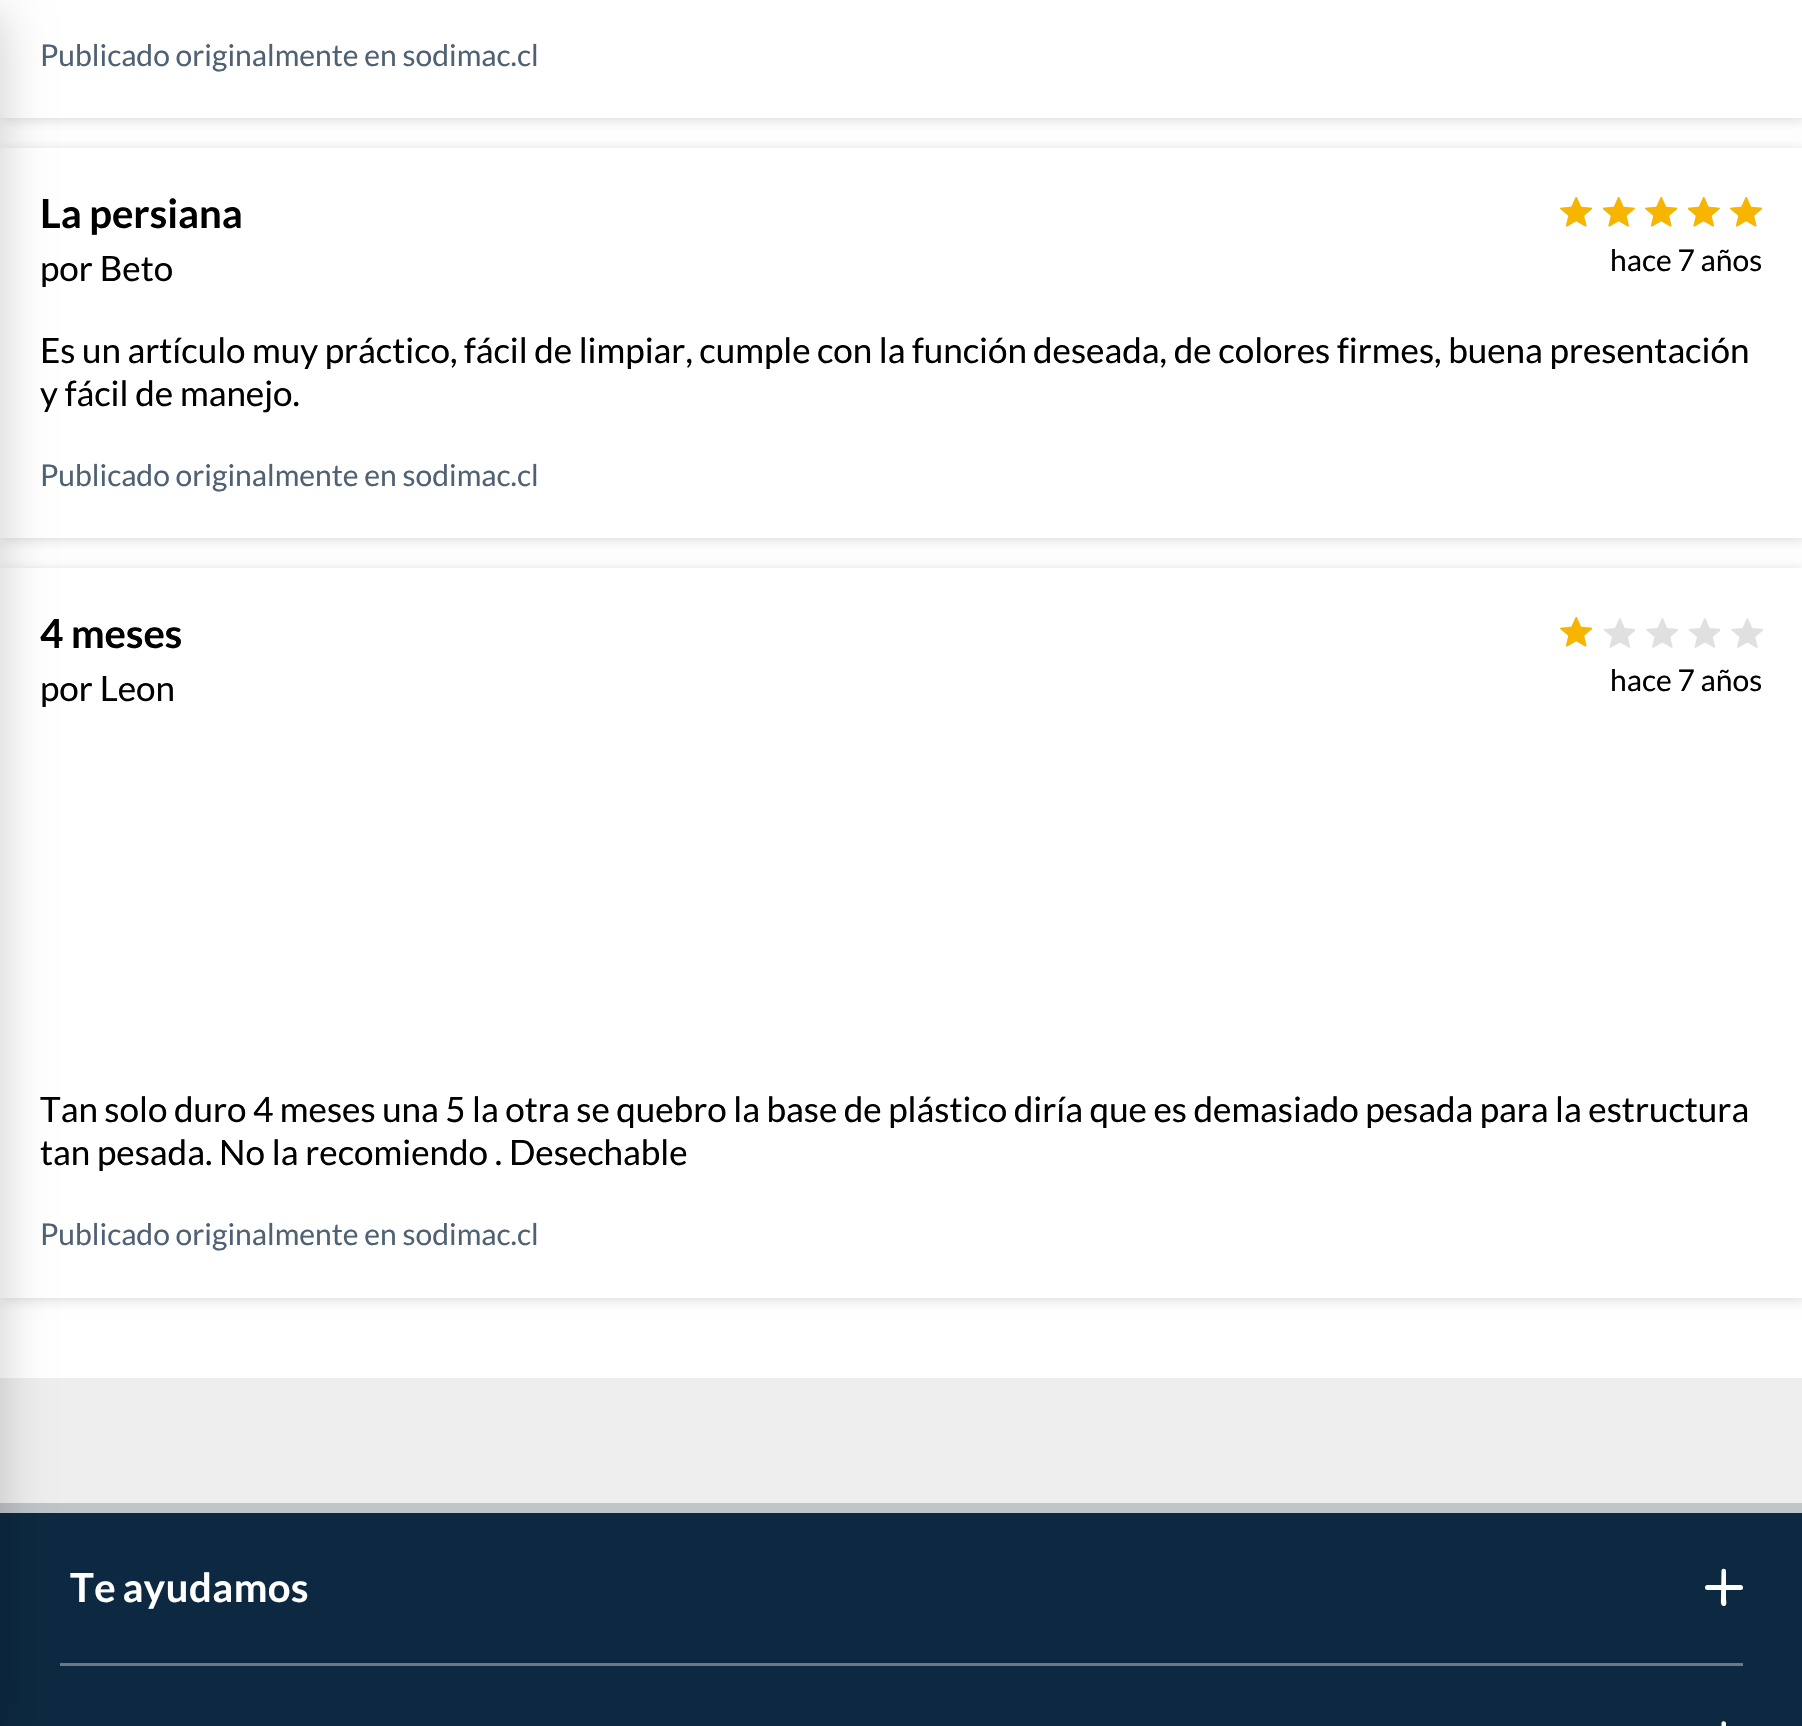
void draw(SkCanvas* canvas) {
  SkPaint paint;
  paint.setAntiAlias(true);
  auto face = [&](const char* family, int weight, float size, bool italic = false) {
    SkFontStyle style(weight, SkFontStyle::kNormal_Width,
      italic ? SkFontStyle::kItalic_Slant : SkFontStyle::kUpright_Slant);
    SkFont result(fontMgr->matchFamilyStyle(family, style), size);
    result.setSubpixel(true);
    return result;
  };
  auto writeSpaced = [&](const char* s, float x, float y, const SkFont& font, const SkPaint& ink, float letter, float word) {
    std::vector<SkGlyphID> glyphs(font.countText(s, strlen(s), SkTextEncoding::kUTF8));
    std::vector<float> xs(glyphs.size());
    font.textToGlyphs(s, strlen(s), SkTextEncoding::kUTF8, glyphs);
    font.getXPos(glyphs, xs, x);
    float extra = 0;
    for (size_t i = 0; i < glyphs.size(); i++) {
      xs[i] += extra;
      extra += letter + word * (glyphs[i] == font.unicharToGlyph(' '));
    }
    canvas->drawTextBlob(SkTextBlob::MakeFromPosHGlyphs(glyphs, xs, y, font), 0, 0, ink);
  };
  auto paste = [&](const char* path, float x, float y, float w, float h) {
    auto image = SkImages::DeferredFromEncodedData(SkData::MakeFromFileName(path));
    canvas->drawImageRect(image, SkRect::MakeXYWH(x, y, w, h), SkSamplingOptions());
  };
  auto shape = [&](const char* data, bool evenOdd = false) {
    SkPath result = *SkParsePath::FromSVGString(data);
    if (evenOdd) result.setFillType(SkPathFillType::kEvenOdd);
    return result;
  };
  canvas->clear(0xffeeeeee);
  paint.setColor(0xffffffff);
  canvas->drawRect(SkRect::MakeXYWH(0, 118, 1802, 1260), paint);
  paint.setColor(0x24000000);
  paint.setMaskFilter(SkMaskFilter::MakeBlur(kNormal_SkBlurStyle, 6));
  canvas->drawRect(SkRect::MakeXYWH(3, -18, 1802, 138), paint);
  paint.setMaskFilter(nullptr);
  paint.setColor(0xffffffff);
  canvas->drawRect(SkRect::MakeXYWH(0, 0, 1802, 118), paint);
  paint.setColor(0x24000000);
  paint.setMaskFilter(SkMaskFilter::MakeBlur(kNormal_SkBlurStyle, 6));
  canvas->drawRect(SkRect::MakeXYWH(3, 150, 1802, 390), paint);
  paint.setMaskFilter(nullptr);
  paint.setColor(0xffffffff);
  canvas->drawRect(SkRect::MakeXYWH(0, 148, 1802, 390), paint);
  paint.setColor(0x24000000);
  paint.setMaskFilter(SkMaskFilter::MakeBlur(kNormal_SkBlurStyle, 6));
  canvas->drawRect(SkRect::MakeXYWH(3, 570, 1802, 730), paint);
  paint.setMaskFilter(nullptr);
  {
    const struct { float x, y, w, h; SkColor color; } items[] = {
      {0, 568, 1802, 730, 0xffffffff},
      {0, 1513, 1802, 213, 0xff0c2941},
      {0, 1503, 1802, 10, 0xffbfc4c9},
      {60, 1663, 1683, 3, 0xff6c7883},
    };
    for (auto [x, y, w, h, color] : items) {
      paint.setColor(color);
      canvas->drawRect(SkRect::MakeXYWH(x, y, w, h), paint);
    }
  }
  paint.setColor(0x33000000);
  paint.setMaskFilter(SkMaskFilter::MakeBlur(kNormal_SkBlurStyle, 25));
  canvas->drawRect(SkRect::MakeXYWH(-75, 13, 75, 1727), paint);
  paint.setMaskFilter(nullptr);
  paste("img/1.png", 1560, 197, 33, 30);
  paste("img/2.png", 1603, 197, 32, 30);
  paste("img/1.png", 1645, 197, 33, 30);
  paste("img/2.png", 1688, 197, 32, 30);
  paste("img/1.png", 1730, 197, 33, 30);
  paste("img/3.png", 1560, 617, 33, 30);
  paste("img/4.png", 1603, 618, 32, 30);
  paste("img/5.png", 1646, 618, 32, 30);
  paste("img/4.png", 1688, 618, 32, 30);
  paste("img/5.png", 1731, 618, 32, 30);
  paint.setColor(0xffffffff);
  canvas->drawRoundRect(SkRect::MakeXYWH(1705, 1585, 38, 5), 2.5f, 2.5f, paint);
  canvas->drawPath(shape("M1726 1571V1598.5C1726 1600 1727.5 1605.5 1724.5 1606C1720 1607 1721 1600 1721 1598.5L1721.5 1570.5C1722 1568 1726 1568.5 1726 1571Z"), paint);
  canvas->drawPath(shape("M1726 1723.5V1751C1726 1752.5 1727.5 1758 1724.5 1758.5C1720 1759.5 1721 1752.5 1721 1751L1721.5 1723C1722 1720.5 1726 1721 1726 1723.5Z"), paint);
  auto f0 = face("Lato", 400, 30);
  paint.setColor(0xff4f6172);
  canvas->drawString("Publicado originalmente en sodimac.cl", 40, 66, f0, paint);
  auto f1 = face("Lato", 700, 40);
  paint.setColor(0xff000000);
  canvas->drawString("La persiana", 40, 228, f1, paint);
  auto f2 = face("Lato", 400, 35);
  canvas->drawString("por Beto", 40, 281, f2, paint);
  canvas->drawString("hace 7 años", 1610, 271, f0, paint);
  writeSpaced("Es un artículo muy práctico, fácil de limpiar, cumple con la función", 40, 363, f2, paint, 0, -0.25f);
  canvas->drawString("deseada, de colores firmes, buena presentación", 1033, 363, f2, paint);
  canvas->drawString("y fácil de manejo.", 40, 406, f2, paint);
  paint.setColor(0xff4f6172);
  canvas->drawString("Publicado originalmente en sodimac.cl", 40, 486, f0, paint);
  paint.setColor(0xff000000);
  canvas->drawString("4 meses", 40, 648, f1, paint);
  canvas->drawString("por Leon", 40, 701, f2, paint);
  canvas->drawString("hace 7 años", 1610, 691, f0, paint);
  writeSpaced("Tan solo duro 4 meses una 5 la otra se quebro la base de plástico diría que es demasiado pesada para la estructura", 40, 1122, f2, paint, 0, -0.25f);
  canvas->drawString("tan pesada. No la recomiendo . Desechable", 40, 1165, f2, paint);
  paint.setColor(0xff4f6172);
  canvas->drawString("Publicado originalmente en sodimac.cl", 40, 1245, f0, paint);
  paint.setColor(0xffffffff);
  writeSpaced("Te ayudamos", 70, 1602, f1, paint, 0.5f, -2);
}
